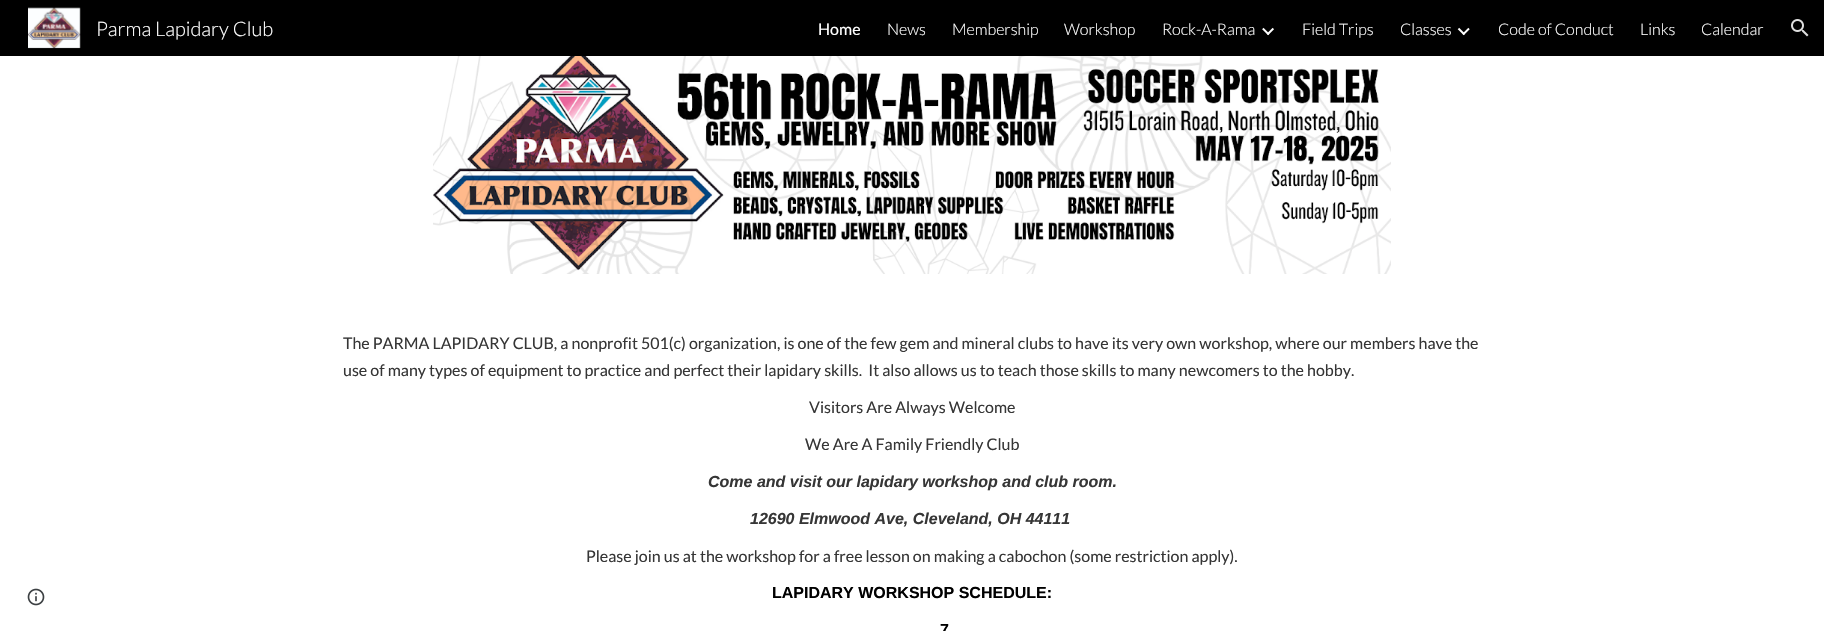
void draw(SkCanvas* canvas) {
  SkPaint paint;
  paint.setAntiAlias(true);
  auto face = [&](const char* family, int weight, float size, bool italic = false) {
    SkFontStyle style(weight, SkFontStyle::kNormal_Width,
      italic ? SkFontStyle::kItalic_Slant : SkFontStyle::kUpright_Slant);
    SkFont result(fontMgr->matchFamilyStyle(family, style), size);
    result.setSubpixel(true);
    return result;
  };
  auto paste = [&](const char* path, float x, float y, float w, float h) {
    auto image = SkImages::DeferredFromEncodedData(SkData::MakeFromFileName(path));
    canvas->drawImageRect(image, SkRect::MakeXYWH(x, y, w, h), SkSamplingOptions());
  };
  canvas->clear(0xffffffff);
  paint.setColor(0xff000000);
  canvas->drawRect(SkRect::MakeXYWH(0, 0, 1824, 56), paint);
  paste("img/1.png", 28, 7, 53, 42);
  paste("img/2.png", 1262, 27, 12, 9);
  paste("img/3.png", 1457, 27, 13, 9);
  paste("img/4.png", 1791, 19, 18, 18);
  paste("img/5.png", 27, 588, 18, 18);
  paste("img/6.png", 433, 56, 958, 218);
  auto f0 = face("Lato", 300, 20);
  paint.setColor(0xffffffff);
  canvas->drawString("Parma Lapidary Club", 96, 36, f0, paint);
  auto f1 = face("Lato", 400, 16);
  canvas->drawString("Home", 818, 35, f1, paint);
  auto f2 = face("Lato", 300, 16);
  {
    const struct { const char* s; float x, y; } items[] = {
      {"News", 887, 35},
      {"Membership", 952, 35},
      {"Workshop", 1064, 35},
      {"Rock-A-Rama", 1162, 35},
      {"Field Trips", 1302, 35},
      {"Classes", 1400, 35},
      {"Code of Conduct", 1498, 35},
      {"Links", 1640, 35},
      {"Calendar", 1701, 35},
    };
    for (auto [s, x, y] : items) {
      canvas->drawString(s, x, y, f2, paint);
    }
  }
  paint.setColor(0xff363636);
  {
    const struct { const char* s; float x, y; } items[] = {
      {"The PARMA LAPIDARY CLUB, a nonprofit 501(c) organization, is one of the few gem and mineral clubs to have its very own workshop, where our members have the", 343, 349},
      {"use of many types of equipment to practice and perfect their lapidary skills.  It also allows us to teach those skills to many newcomers to the hobby.", 343, 376},
      {"Visitors Are Always Welcome", 809, 413},
      {"We Are A Family Friendly Club", 805, 450},
    };
    for (auto [s, x, y] : items) {
      canvas->drawString(s, x, y, f1, paint);
    }
  }
  auto f3 = face("Liberation Sans", 700, 16, true);
  canvas->drawString("Come and visit our lapidary workshop and club room.", 708, 487, f3, paint);
  canvas->drawString("12690 Elmwood Ave, Cleveland, OH 44111", 750, 524, f3, paint);
  canvas->drawString("Please join us at the workshop for a free lesson on making a cabochon (some restriction apply).", 586, 562, f1, paint);
  auto f4 = face("Liberation Sans", 700, 16);
  paint.setColor(0xff000000);
  canvas->drawString("LAPIDARY WORKSHOP SCHEDULE:", 772, 598, f4, paint);
  canvas->drawString("7", 940, 635, f4, paint);
}
